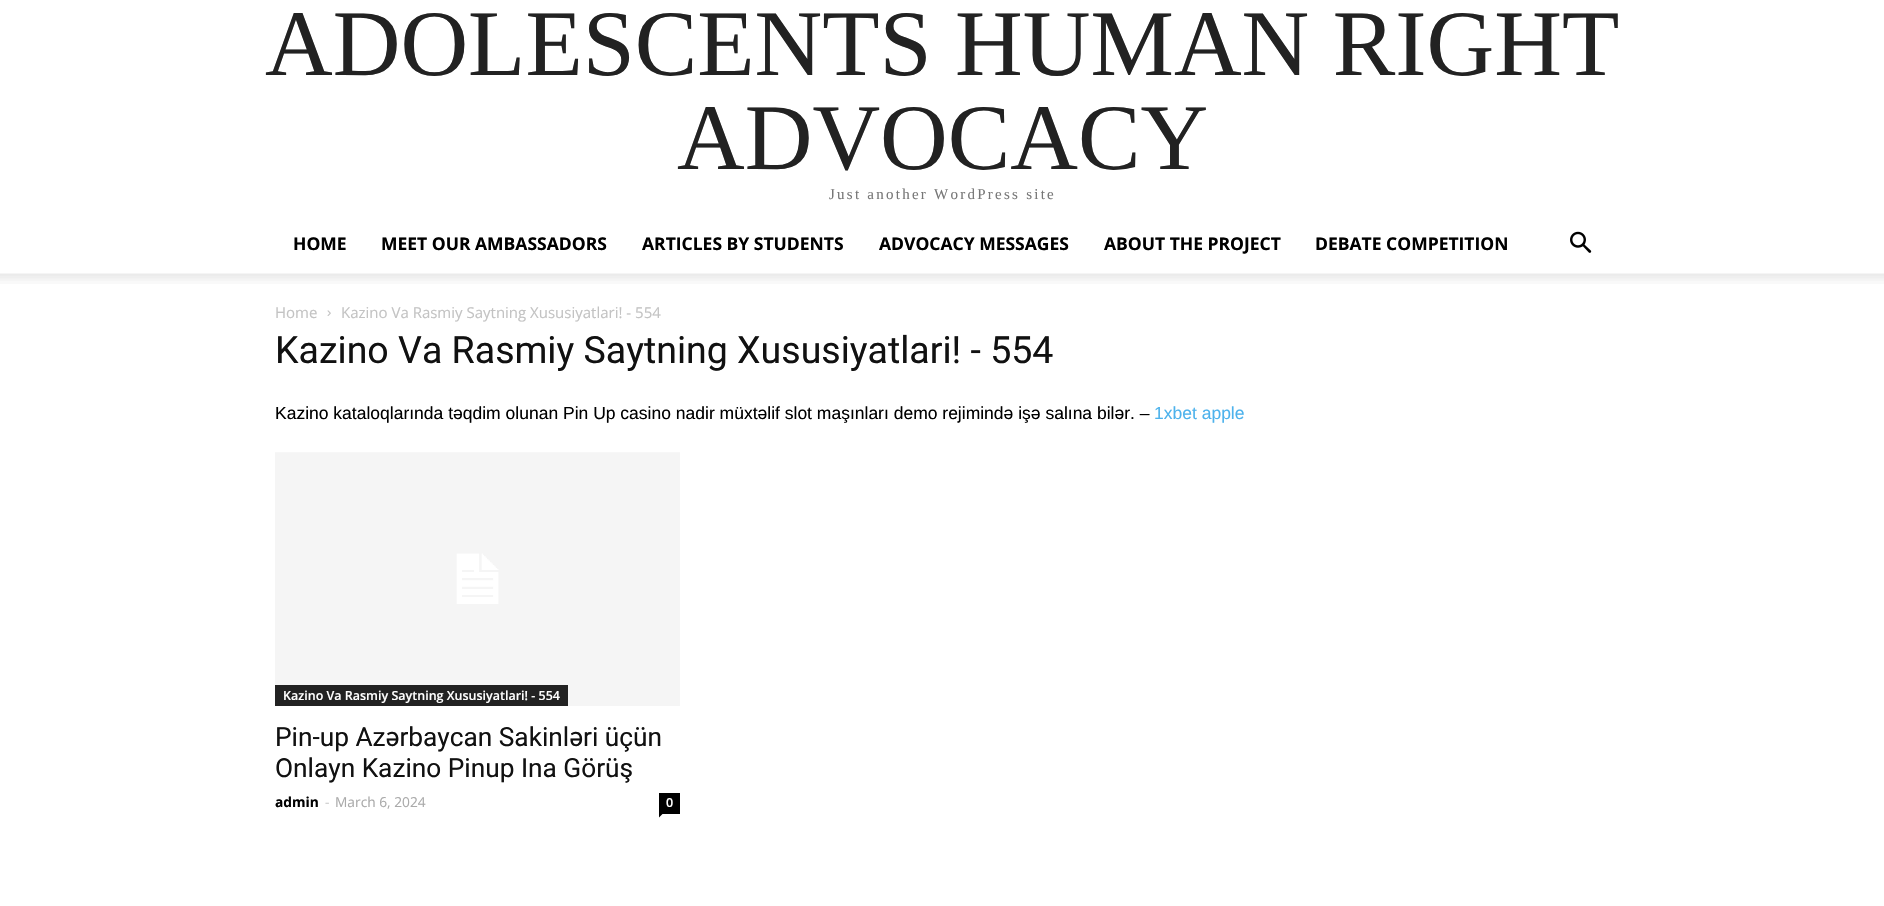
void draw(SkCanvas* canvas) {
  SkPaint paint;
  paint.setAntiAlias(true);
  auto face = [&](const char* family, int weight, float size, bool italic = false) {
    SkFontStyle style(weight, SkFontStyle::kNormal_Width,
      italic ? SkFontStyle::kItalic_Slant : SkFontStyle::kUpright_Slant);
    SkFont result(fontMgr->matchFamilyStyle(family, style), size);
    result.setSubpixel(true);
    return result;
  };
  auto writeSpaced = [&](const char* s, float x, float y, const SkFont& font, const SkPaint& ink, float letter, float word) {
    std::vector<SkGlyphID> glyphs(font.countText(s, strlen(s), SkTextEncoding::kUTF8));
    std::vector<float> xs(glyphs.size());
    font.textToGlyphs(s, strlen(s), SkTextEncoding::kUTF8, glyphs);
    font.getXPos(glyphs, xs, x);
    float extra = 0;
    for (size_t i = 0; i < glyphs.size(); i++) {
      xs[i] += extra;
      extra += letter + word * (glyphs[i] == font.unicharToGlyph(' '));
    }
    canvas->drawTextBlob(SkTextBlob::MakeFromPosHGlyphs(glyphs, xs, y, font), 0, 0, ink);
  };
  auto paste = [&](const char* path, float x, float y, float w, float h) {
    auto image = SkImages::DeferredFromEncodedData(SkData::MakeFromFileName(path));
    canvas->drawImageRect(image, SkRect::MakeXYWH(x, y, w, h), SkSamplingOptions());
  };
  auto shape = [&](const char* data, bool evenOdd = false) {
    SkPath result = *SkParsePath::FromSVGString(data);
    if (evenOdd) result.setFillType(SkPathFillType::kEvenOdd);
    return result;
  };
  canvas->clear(0xffffffff);
  paste("img/1.png", 1570, 231, 22, 22);
  paste("img/2.png", 0, 273, 1884, 11);
  paste("img/3.png", 327, 310, 4, 6);
  paste("img/4.png", 275, 452, 405, 254);
  paint.setColor(0xff222222);
  canvas->drawRect(SkRect::MakeXYWH(275, 685, 293, 21), paint);
  paint.setColor(0xff000000);
  canvas->drawRect(SkRect::MakeXYWH(659, 793, 21, 21), paint);
  canvas->drawPath(shape("M659 814H662.5L659 817.5Z"), paint);
  auto f0 = face("Liberation Serif", 400, 93.75f);
  paint.setColor(0xff222222);
  canvas->drawString("ADOLESCENTS HUMAN RIGHT", 265, 75, f0, paint);
  canvas->drawString("ADVOCACY", 677, 169, f0, paint);
  auto f1 = face("Liberation Serif", 400, 15);
  paint.setColor(0xff777777);
  writeSpaced("Just another WordPress site", 829, 199, f1, paint, 2.25f, 0);
  auto f2 = face("Open Sans", 700, 17.5f);
  paint.setColor(0xff000000);
  {
    const struct { const char* s; float x, y; } items[] = {
      {"HOME", 293, 250},
      {"MEET OUR AMBASSADORS", 381, 250},
      {"ARTICLES BY STUDENTS", 642, 250},
      {"ADVOCACY MESSAGES", 879, 250},
      {"ABOUT THE PROJECT", 1104, 250},
      {"DEBATE COMPETITION", 1315, 250},
    };
    for (auto [s, x, y] : items) {
      canvas->drawString(s, x, y, f2, paint);
    }
  }
  auto f3 = face("Open Sans", 400, 15);
  paint.setColor(0xffc3c3c3);
  canvas->drawString("Home", 275, 318, f3, paint);
  canvas->drawString("Kazino Va Rasmiy Saytning Xususiyatlari! - 554", 341, 318, f3, paint);
  auto f4 = face("Roboto", 400, 37.5f);
  paint.setColor(0xff111111);
  canvas->drawString("Kazino Va Rasmiy Saytning Xususiyatlari! - 554", 275, 363, f4, paint);
  auto f5 = face("Liberation Sans", 400, 17.5f);
  paint.setColor(0xff000000);
  canvas->drawString("Kazino kataloqlarında təqdim olunan Pin Up casino nadir müxtəlif slot maşınları demo rejimində işə salına bilər. –", 275, 419, f5, paint);
  paint.setColor(0xff4db2ec);
  canvas->drawString("1xbet apple", 1154, 419, f5, paint);
  auto f6 = face("Open Sans", 600, 12.5f);
  paint.setColor(0xffffffff);
  canvas->drawString("Kazino Va Rasmiy Saytning Xususiyatlari! - 554", 283, 700, f6, paint);
  auto f7 = face("Roboto", 400, 26.25f);
  paint.setColor(0xff111111);
  canvas->drawString("Pin-up Azərbaycan Sakinləri üçün", 275, 746, f7, paint);
  canvas->drawString("Onlayn Kazino Pinup Ina Görüş", 275, 777, f7, paint);
  auto f8 = face("Open Sans", 700, 13.75f);
  paint.setColor(0xff000000);
  canvas->drawString("admin", 275, 807, f8, paint);
  auto f9 = face("Open Sans", 400, 13.75f);
  paint.setColor(0xffcccccc);
  canvas->drawString("-", 325, 807, f9, paint);
  paint.setColor(0xffaaaaaa);
  canvas->drawString("March 6, 2024", 335, 807, f9, paint);
  paint.setColor(0xffffffff);
  canvas->drawString("0", 666, 807, f6, paint);
}
